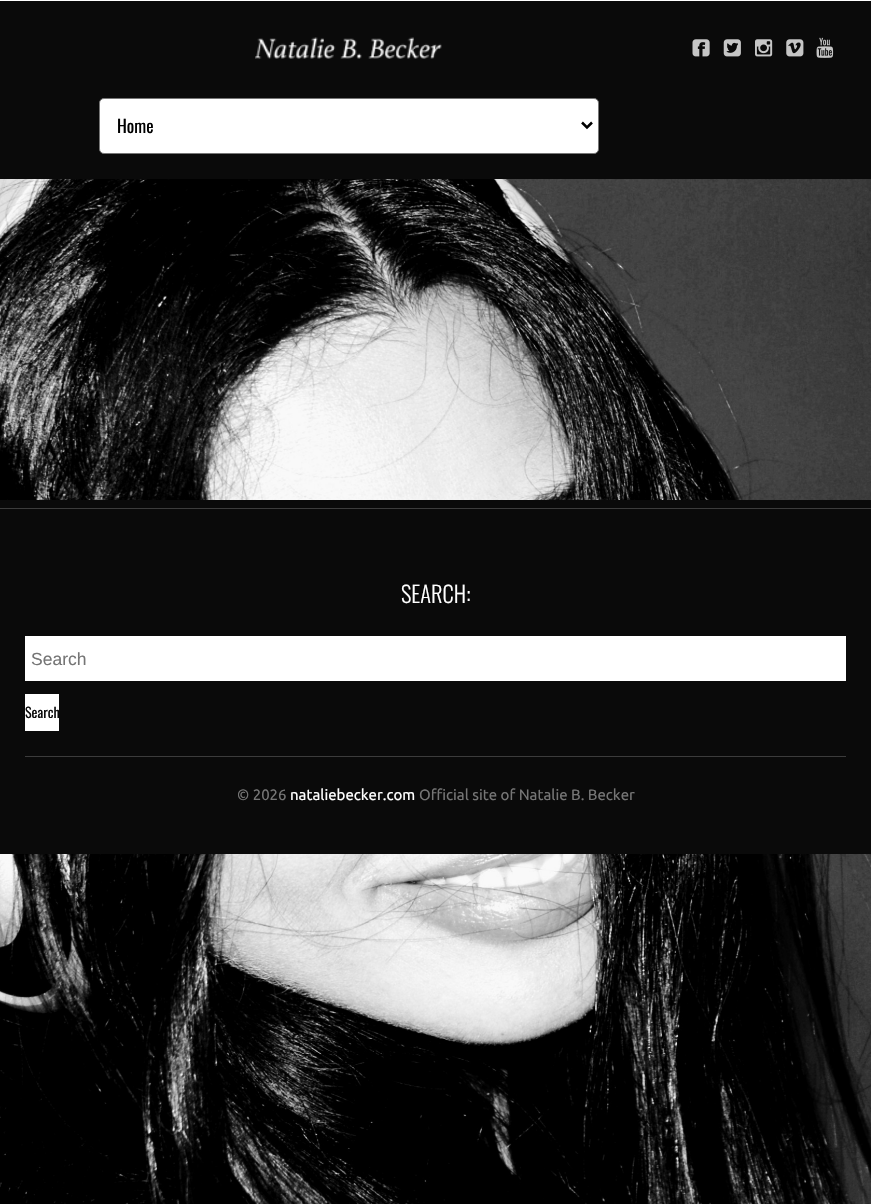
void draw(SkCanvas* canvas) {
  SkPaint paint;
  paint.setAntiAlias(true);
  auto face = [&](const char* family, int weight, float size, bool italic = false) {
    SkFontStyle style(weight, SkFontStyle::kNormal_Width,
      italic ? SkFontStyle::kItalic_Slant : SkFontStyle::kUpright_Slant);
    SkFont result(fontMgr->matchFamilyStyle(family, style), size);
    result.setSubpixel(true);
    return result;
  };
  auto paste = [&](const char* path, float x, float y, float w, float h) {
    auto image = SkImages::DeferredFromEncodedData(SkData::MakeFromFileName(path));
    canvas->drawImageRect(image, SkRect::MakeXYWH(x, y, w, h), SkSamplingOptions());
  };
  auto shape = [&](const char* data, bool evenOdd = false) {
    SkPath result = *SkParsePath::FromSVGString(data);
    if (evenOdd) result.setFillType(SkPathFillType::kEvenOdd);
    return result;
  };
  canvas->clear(0xffffffff);
  paint.setColor(0xff0a0a0a);
  canvas->drawRect(SkRect::MakeXYWH(0, 1, 871, 178), paint);
  paste("img/1.png", 255, 37, 187, 22);
  paste("img/2.png", 692, 39, 18, 18);
  paste("img/3.png", 723, 39, 18, 18);
  paste("img/4.png", 755, 39, 18, 18);
  paste("img/5.png", 786, 39, 18, 18);
  paste("img/6.png", 816, 37, 18, 21);
  paint.setColor(0xffffffff);
  canvas->drawRoundRect(SkRect::MakeXYWH(99.5f, 98.5f, 499, 55), 4.5f, 4.5f, paint);
  paint.setStroke(true);
  paint.setStrokeWidth(1);
  paint.setColor(0xff767676);
  canvas->drawRoundRect(SkRect::MakeXYWH(99.5f, 98.5f, 499, 55), 4.5f, 4.5f, paint);
  paint.setStrokeWidth(2.5f);
  paint.setColor(0xff000000);
  canvas->drawPath(shape("M582 122.5L587 127.5L592 122.5"), paint);
  paste("img/7.png", 0, 179, 871, 1025);
  paint.setStroke(false);
  {
    const struct { float x, y, w, h; SkColor color; } items[] = {
      {0, 500, 871, 8, 0xff0a0a0a},
      {0, 509, 871, 345, 0xff0a0a0a},
      {0, 508, 871, 1, 0xff3c3c3c},
      {25, 636, 821, 45, 0xffffffff},
      {25, 694, 34, 37, 0xffffffff},
      {25, 756, 821, 1, 0xff3c3c3c},
    };
    for (auto [x, y, w, h, color] : items) {
      paint.setColor(color);
      canvas->drawRect(SkRect::MakeXYWH(x, y, w, h), paint);
    }
  }
  auto f0 = face("Oswald", 400, 17.5f);
  paint.setColor(0xff000000);
  canvas->drawString("Home", 117, 133, f0, paint);
  auto f1 = face("Oswald", 300, 22.5f);
  paint.setColor(0xffffffff);
  canvas->drawString("SEARCH:", 401, 603, f1, paint);
  auto f2 = face("Liberation Sans", 400, 17.5f);
  paint.setColor(0xff757575);
  canvas->drawString("Search", 31, 665, f2, paint);
  auto f3 = face("Oswald", 400, 14);
  paint.setColor(0xff0a0a0a);
  canvas->drawString("Search", 25, 718, f3, paint);
  auto f4 = face("Ubuntu", 400, 15);
  paint.setColor(0xff757575);
  canvas->drawString("© 2026", 237, 800, f4, paint);
  paint.setColor(0xffffffff);
  canvas->drawString("nataliebecker.com", 290, 800, f4, paint);
  paint.setColor(0xff757575);
  canvas->drawString("Official site of Natalie B. Becker", 419, 800, f4, paint);
}
